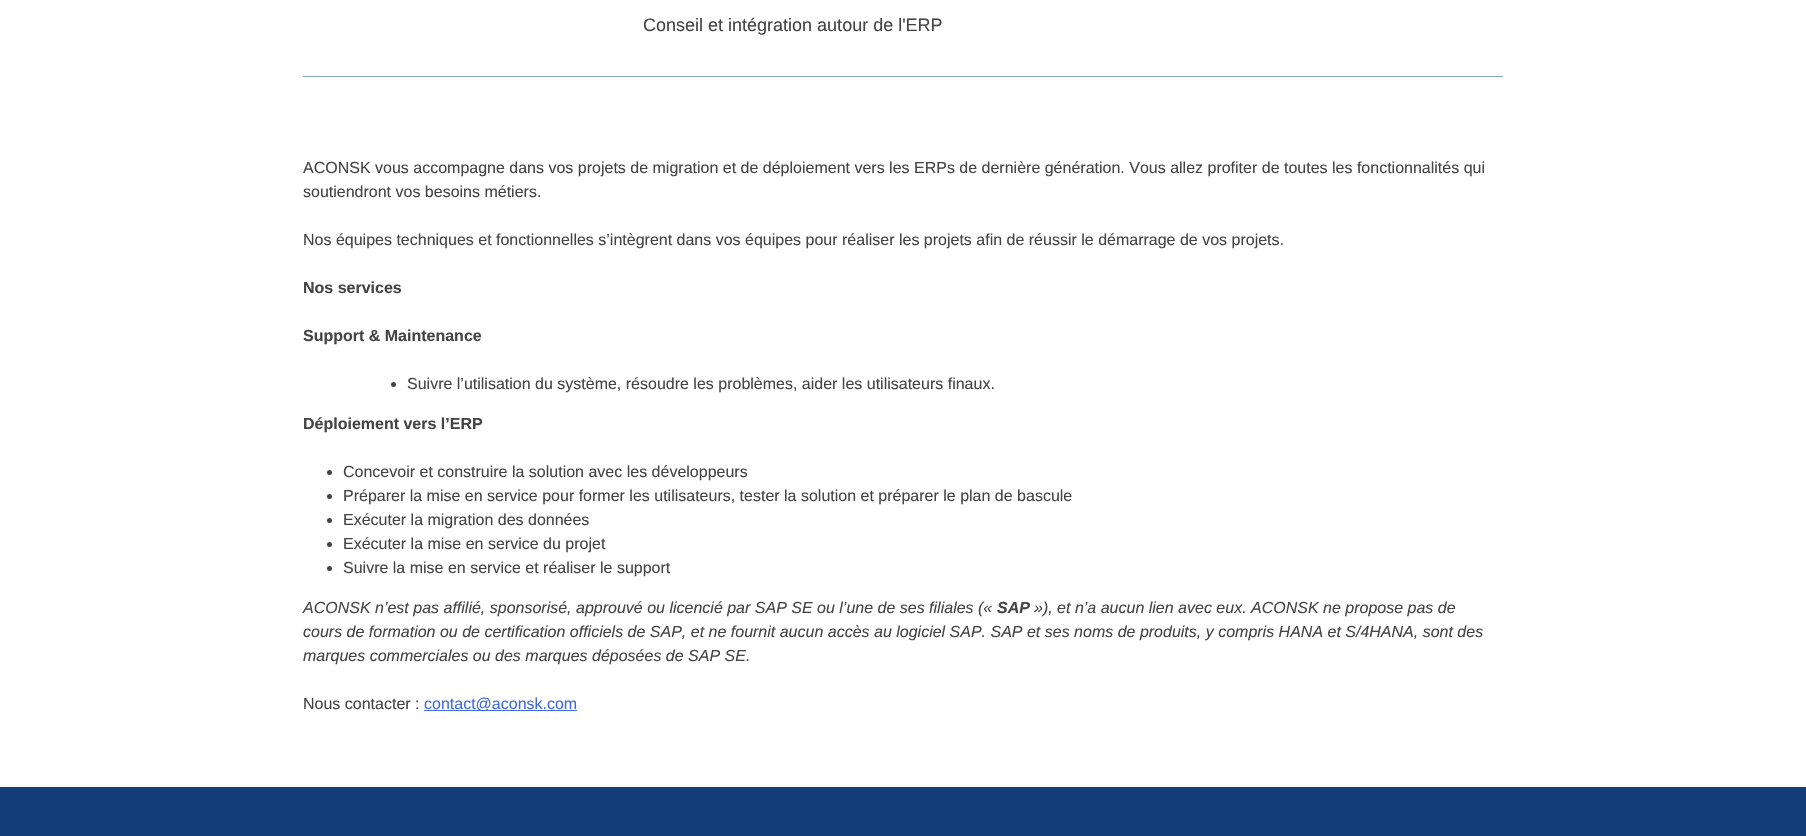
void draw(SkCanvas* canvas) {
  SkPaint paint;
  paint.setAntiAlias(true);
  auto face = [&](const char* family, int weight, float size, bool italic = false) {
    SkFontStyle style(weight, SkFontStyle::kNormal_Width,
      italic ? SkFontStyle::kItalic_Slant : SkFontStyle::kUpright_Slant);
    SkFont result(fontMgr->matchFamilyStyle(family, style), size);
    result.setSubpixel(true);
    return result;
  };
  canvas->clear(0xffffffff);
  paint.setColor(0xff89a4cb);
  canvas->drawRect(SkRect::MakeXYWH(303, 76, 1200, 1), paint);
  paint.setColor(0xff444444);
  canvas->drawCircle(393.5f, 384.5f, 2.5f, paint);
  canvas->drawCircle(329.5f, 472.5f, 2.5f, paint);
  canvas->drawCircle(329.5f, 496.5f, 2.5f, paint);
  canvas->drawCircle(329.5f, 520.5f, 2.5f, paint);
  canvas->drawCircle(329.5f, 544.5f, 2.5f, paint);
  canvas->drawCircle(329.5f, 568.5f, 2.5f, paint);
  paint.setColor(0xff4169e1);
  canvas->drawRect(SkRect::MakeXYWH(424, 710, 153, 1), paint);
  paint.setColor(0xff133d79);
  canvas->drawRect(SkRect::MakeXYWH(0, 787, 1806, 49), paint);
  auto f0 = face("Liberation Sans", 400, 18);
  paint.setColor(0xff444444);
  canvas->drawString("Conseil et intégration autour de l'ERP", 643, 31, f0, paint);
  auto f1 = face("Liberation Sans", 400, 16);
  {
    const struct { const char* s; float x, y; } items[] = {
      {"ACONSK vous accompagne dans vos projets de migration et de déploiement vers les ERPs de dernière génération. Vous allez profiter de toutes les fonctionnalités qui", 303, 173},
      {"soutiendront vos besoins métiers.", 303, 197},
      {"Nos équipes techniques et fonctionnelles s’intègrent dans vos équipes pour réaliser les projets afin de réussir le démarrage de vos projets.", 303, 245},
    };
    for (auto [s, x, y] : items) {
      canvas->drawString(s, x, y, f1, paint);
    }
  }
  auto f2 = face("Liberation Sans", 700, 16);
  canvas->drawString("Nos services", 303, 293, f2, paint);
  canvas->drawString("Support & Maintenance", 303, 341, f2, paint);
  canvas->drawString("Suivre l’utilisation du système, résoudre les problèmes, aider les utilisateurs finaux.", 407, 389, f1, paint);
  canvas->drawString("Déploiement vers l’ERP", 303, 429, f2, paint);
  {
    const struct { const char* s; float x, y; } items[] = {
      {"Concevoir et construire la solution avec les développeurs", 343, 477},
      {"Préparer la mise en service pour former les utilisateurs, tester la solution et préparer le plan de bascule", 343, 501},
      {"Exécuter la migration des données", 343, 525},
      {"Exécuter la mise en service du projet", 343, 549},
      {"Suivre la mise en service et réaliser le support", 343, 573},
    };
    for (auto [s, x, y] : items) {
      canvas->drawString(s, x, y, f1, paint);
    }
  }
  auto f3 = face("Liberation Sans", 400, 16, true);
  canvas->drawString("ACONSK n’est pas affilié, sponsorisé, approuvé ou licencié par SAP SE ou l’une de ses filiales («", 303, 613, f3, paint);
  auto f4 = face("Liberation Sans", 700, 16, true);
  canvas->drawString("SAP", 997, 613, f4, paint);
  {
    const struct { const char* s; float x, y; } items[] = {
      {"»), et n’a aucun lien avec eux. ACONSK ne propose pas de", 1034, 613},
      {"cours de formation ou de certification officiels de SAP, et ne fournit aucun accès au logiciel SAP. SAP et ses noms de produits, y compris HANA et S/4HANA, sont des", 303, 637},
      {"marques commerciales ou des marques déposées de SAP SE.", 303, 661},
    };
    for (auto [s, x, y] : items) {
      canvas->drawString(s, x, y, f3, paint);
    }
  }
  canvas->drawString("Nous contacter :", 303, 709, f1, paint);
  paint.setColor(0xff4169e1);
  canvas->drawString("contact@aconsk.com", 424, 709, f1, paint);
}
